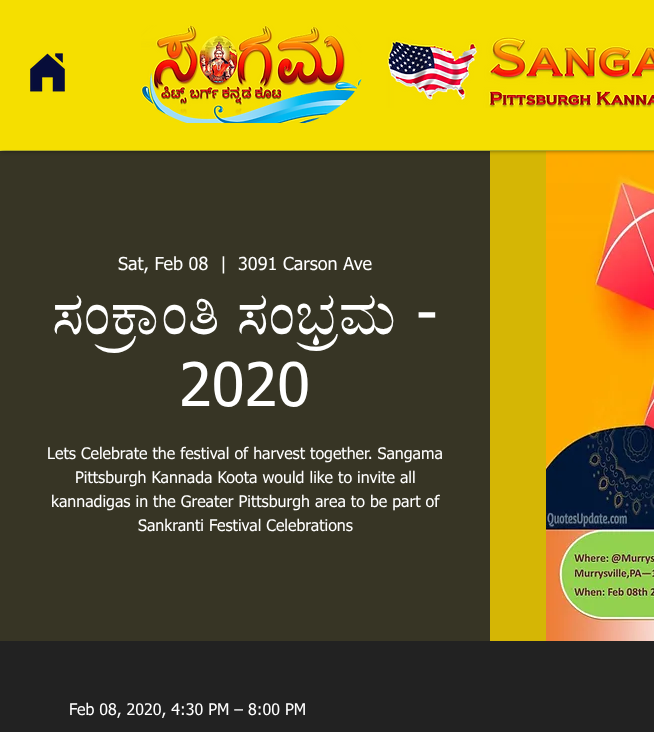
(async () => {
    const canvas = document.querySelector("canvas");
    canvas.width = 654;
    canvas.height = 732;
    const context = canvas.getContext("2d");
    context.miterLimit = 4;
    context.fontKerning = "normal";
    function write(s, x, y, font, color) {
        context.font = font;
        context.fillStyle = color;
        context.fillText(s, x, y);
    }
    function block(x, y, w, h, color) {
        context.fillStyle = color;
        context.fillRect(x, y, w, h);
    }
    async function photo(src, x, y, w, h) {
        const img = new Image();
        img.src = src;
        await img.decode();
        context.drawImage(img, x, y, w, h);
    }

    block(0, 0, 654, 732, "rgb(253, 247, 51)");
    block(0, 151, 490, 490, "rgb(55, 53, 37)");
    block(490, 151, 56, 490, "rgb(213, 182, 5)");
    await photo("media/4.png", 546, 151, 108, 490);
    context.fillStyle = "rgba(0, 0, 0, 0.7)";
    context.filter = "blur(2.5px)";
    context.beginPath();
    context.rect(0, 0, 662, 150);
    context.fill();
    context.filter = "none";
    block(0, 0, 654, 150, "rgb(245, 223, 0)");
    await photo("media/1.png", 30, 53, 35, 39);
    await photo("media/2.png", 141, 25, 221, 98);
    await photo("media/3.png", 386, 37, 268, 71);
    write("Sat, Feb 08", 118, 270, "18px tahoma", "rgb(255, 255, 255)");
    write("|", 220, 270, "18px tahoma", "rgb(255, 255, 255)");
    write("3091 Carson Ave", 238, 270, "18px tahoma", "rgb(255, 255, 255)");
    context.wordSpacing = "2px";
    write("ಸಂಕ್ರಾಂತಿ ಸಂಭ್ರಮ", 52, 334, "60px FreeSerif", "rgb(255, 255, 255)");
    context.wordSpacing = "0px";
    write("-", 416, 334, "60px tahoma", "rgb(255, 255, 255)");
    write("2020", 179, 406, "60px tahoma", "rgb(255, 255, 255)");
    write("Lets Celebrate the festival of harvest together. Sangama", 47, 459, "16px tahoma", "rgb(255, 255, 255)");
    write("Pittsburgh Kannada Koota would like to invite all", 75, 483, "16px tahoma", "rgb(255, 255, 255)");
    write("kannadigas in the Greater Pittsburgh area to be part of", 51, 507, "16px tahoma", "rgb(255, 255, 255)");
    write("Sankranti Festival Celebrations", 138, 531, "16px tahoma", "rgb(255, 255, 255)");
    block(0, 641, 654, 91, "rgb(34, 34, 34)");
    write("Feb 08, 2020, 4:30 PM – 8:00 PM", 69, 715, "16px tahoma", "rgb(255, 255, 255)");
})();
